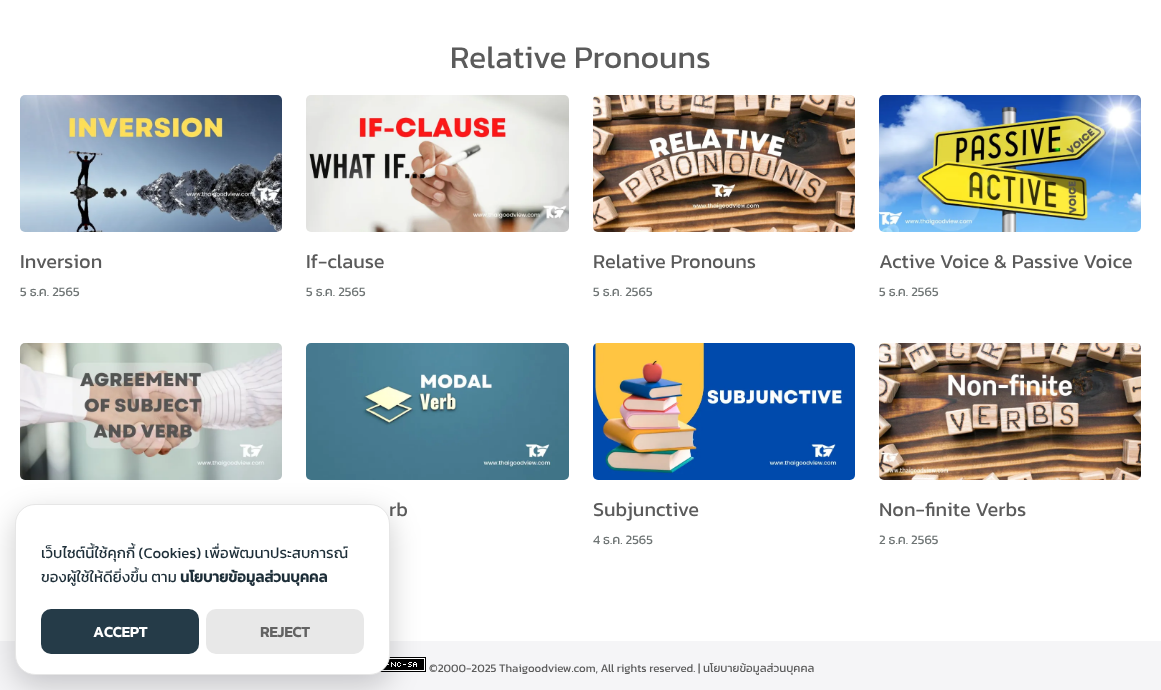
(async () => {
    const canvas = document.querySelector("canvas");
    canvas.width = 1161;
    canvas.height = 690;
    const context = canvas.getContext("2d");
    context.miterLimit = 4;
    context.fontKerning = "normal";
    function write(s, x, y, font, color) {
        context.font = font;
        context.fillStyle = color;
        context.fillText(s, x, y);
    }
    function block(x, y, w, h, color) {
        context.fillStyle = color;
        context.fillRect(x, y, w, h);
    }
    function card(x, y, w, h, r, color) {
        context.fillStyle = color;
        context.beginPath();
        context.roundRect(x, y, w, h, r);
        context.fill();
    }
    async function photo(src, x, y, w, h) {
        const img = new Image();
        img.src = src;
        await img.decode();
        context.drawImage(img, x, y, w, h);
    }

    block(0, 0, 1161, 690, "rgb(255, 255, 255)");
    write("Relative Pronouns", 450, 68, "32px Kanit", "rgb(91, 91, 91)");
    await photo("media/1.png", 20, 95, 262, 137);
    write("Inversion", 20, 268, "20px Kanit", "rgb(91, 91, 91)");
    write("5 ธ.ค. 2565", 20, 296, "13px Kanit", "rgb(110, 116, 116)");
    await photo("media/2.png", 306, 95, 263, 137);
    write("If-clause", 306, 268, "20px Kanit", "rgb(91, 91, 91)");
    write("5 ธ.ค. 2565", 306, 296, "13px Kanit", "rgb(110, 116, 116)");
    await photo("media/3.png", 593, 95, 262, 137);
    write("Relative Pronouns", 593, 268, "20px Kanit", "rgb(91, 91, 91)");
    write("5 ธ.ค. 2565", 593, 296, "13px Kanit", "rgb(110, 116, 116)");
    await photo("media/4.png", 879, 95, 262, 137);
    write("Active Voice & Passive Voice", 879, 268, "20px Kanit", "rgb(91, 91, 91)");
    write("5 ธ.ค. 2565", 879, 296, "13px Kanit", "rgb(110, 116, 116)");
    await photo("media/5.png", 20, 343, 262, 137);
    await photo("media/6.png", 306, 343, 263, 137);
    write("rb", 389, 516, "20px Kanit", "rgb(91, 91, 91)");
    await photo("media/7.png", 593, 343, 262, 137);
    write("Subjunctive", 593, 516, "20px Kanit", "rgb(91, 91, 91)");
    write("4 ธ.ค. 2565", 593, 544, "13px Kanit", "rgb(110, 116, 116)");
    await photo("media/8.png", 879, 343, 262, 137);
    write("Non-finite Verbs", 879, 516, "20px Kanit", "rgb(91, 91, 91)");
    write("2 ธ.ค. 2565", 879, 544, "13px Kanit", "rgb(110, 116, 116)");
    block(0, 641, 1161, 49, "rgb(245, 245, 247)");
    await photo("media/9.png", 380, 657, 46, 15);
    write("©2000-2025 Thaigoodview.com, All rights reserved. | นโยบายข้อมูลส่วนบุคคล", 429, 672, "11.5px Kanit", "rgb(91, 91, 91)");
    context.fillStyle = "rgba(2, 2, 3, 0.2)";
    context.filter = "blur(15px)";
    context.beginPath();
    context.roundRect(15, 514, 375, 171, 20);
    context.fill();
    context.filter = "none";
    context.fillStyle = "rgb(255, 255, 255)";
    context.beginPath();
    context.roundRect(15.5, 504.5, 374, 170, 19.5);
    context.fill();
    context.strokeStyle = "rgb(230, 230, 230)";
    context.stroke();
    write("เว็บไซต์นี้ใช้คุกกี้ (Cookies) เพื่อพัฒนาประสบการณ์", 41, 558, "15px Kanit", "rgb(29, 46, 56)");
    write("ของผู้ใช้ให้ดียิ่งขึ้น ตาม", 41, 582, "15px Kanit", "rgb(29, 46, 56)");
    write("นโยบายข้อมูลส่วนบุคคล", 180, 582, "bold 15px Kanit", "rgb(29, 46, 56)");
    card(41, 609, 158, 45, 10, "rgb(37, 59, 72)");
    write("ACCEPT", 93, 637, "bold 15px Kanit", "rgb(255, 255, 255)");
    card(206, 609, 158, 45, 10, "rgb(232, 232, 232)");
    write("REJECT", 260, 637, "bold 15px Kanit", "rgb(99, 99, 99)");
})();
